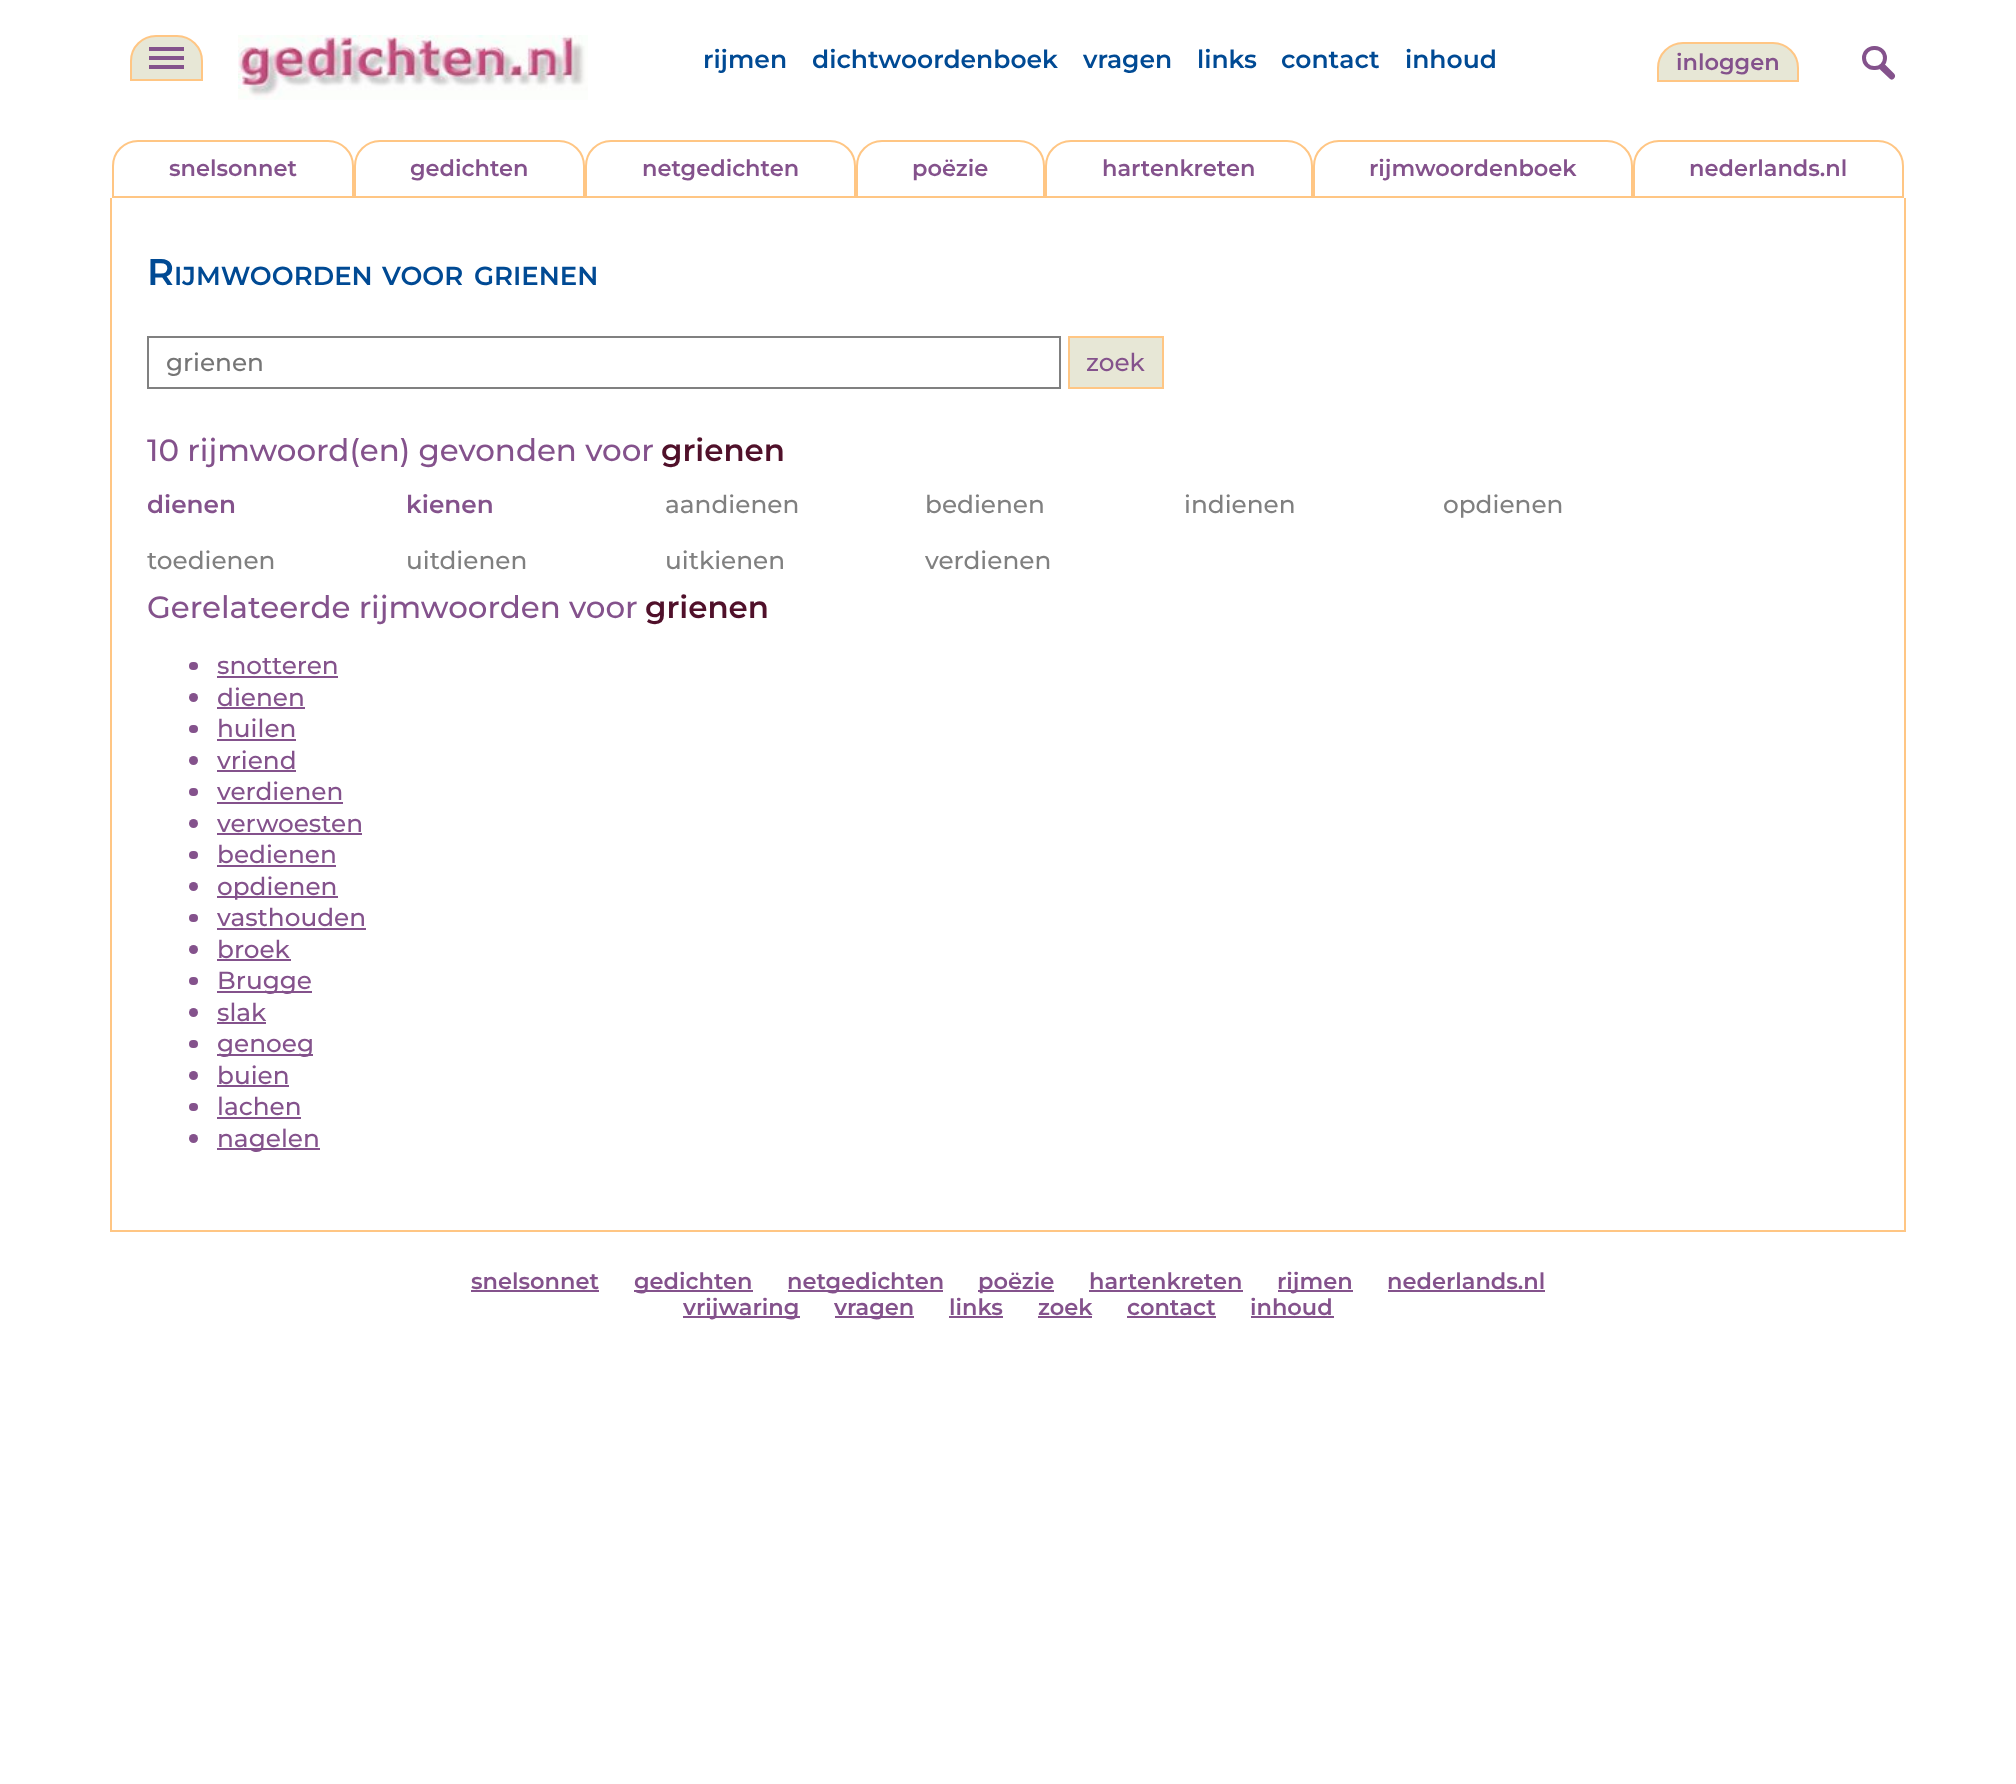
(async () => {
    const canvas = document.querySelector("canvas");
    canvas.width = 2016;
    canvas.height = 1784;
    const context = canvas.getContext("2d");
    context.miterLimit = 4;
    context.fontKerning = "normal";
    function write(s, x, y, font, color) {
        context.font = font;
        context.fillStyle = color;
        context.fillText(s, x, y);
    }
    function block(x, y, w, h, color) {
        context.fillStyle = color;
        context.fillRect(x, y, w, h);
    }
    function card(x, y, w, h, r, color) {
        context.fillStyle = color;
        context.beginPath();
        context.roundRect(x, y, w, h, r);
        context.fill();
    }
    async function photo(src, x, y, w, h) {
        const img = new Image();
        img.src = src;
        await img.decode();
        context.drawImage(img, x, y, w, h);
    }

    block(0, 0, 2016, 1784, "rgb(255, 255, 255)");
    context.fillStyle = "rgb(231, 231, 214)";
    context.beginPath();
    context.roundRect(131, 36, 71, 44, [25, 25, 0, 0]);
    context.fill();
    context.strokeStyle = "rgb(255, 198, 132)";
    context.lineWidth = 2;
    context.stroke();
    block(149, 47, 35, 4, "rgb(132, 82, 140)");
    block(149, 56, 35, 4, "rgb(132, 82, 140)");
    block(149, 65, 35, 4, "rgb(132, 82, 140)");
    await photo("media/1.png", 238, 35, 350, 65);
    write("rijmen", 703, 68, "100 25px Montserrat", "rgb(0, 74, 148)");
    write("dichtwoordenboek", 812, 68, "100 25px Montserrat", "rgb(0, 74, 148)");
    write("vragen", 1083, 68, "100 25px Montserrat", "rgb(0, 74, 148)");
    write("links", 1197, 68, "100 25px Montserrat", "rgb(0, 74, 148)");
    write("contact", 1281, 68, "100 25px Montserrat", "rgb(0, 74, 148)");
    write("inhoud", 1405, 68, "100 25px Montserrat", "rgb(0, 74, 148)");
    context.fillStyle = "rgb(231, 231, 214)";
    context.beginPath();
    context.roundRect(1658, 43, 140, 38, [25, 25, 0, 0]);
    context.fill();
    context.stroke();
    write("inloggen", 1676, 70, "100 22.5px Montserrat", "rgb(132, 82, 140)");
    context.beginPath();
    context.roundRect(1864, 48, 21, 20, 10);
    context.strokeStyle = "rgb(132, 82, 140)";
    context.lineWidth = 4;
    context.stroke();
    context.beginPath();
    context.moveTo(1885.5, 65);
    context.lineTo(1894, 73.5);
    context.bezierCurveTo(1895.5, 75, 1895.5, 77, 1894, 78.5);
    context.bezierCurveTo(1893, 80, 1890.5, 80, 1889.5, 78.5);
    context.lineTo(1880.5, 70);
    context.bezierCurveTo(1879, 68.5, 1879, 66.5, 1880.5, 65);
    context.bezierCurveTo(1882, 63.5, 1884, 63.5, 1885.5, 65);
    context.closePath();
    context.fill();
    context.beginPath();
    context.roundRect(113, 141, 240, 56, [25, 25, 0, 0]);
    context.strokeStyle = "rgb(255, 198, 132)";
    context.lineWidth = 2;
    context.stroke();
    write("snelsonnet", 169, 176, "100 22.5px Montserrat", "rgb(132, 82, 140)");
    context.beginPath();
    context.roundRect(355, 141, 229, 56, [25, 25, 0, 0]);
    context.stroke();
    write("gedichten", 410, 176, "100 22.5px Montserrat", "rgb(132, 82, 140)");
    context.beginPath();
    context.roundRect(586, 141, 269, 56, [25, 25, 0, 0]);
    context.stroke();
    write("netgedichten", 642, 176, "100 22.5px Montserrat", "rgb(132, 82, 140)");
    context.beginPath();
    context.roundRect(857, 141, 187, 56, [25, 25, 0, 0]);
    context.stroke();
    write("poëzie", 912, 176, "100 22.5px Montserrat", "rgb(132, 82, 140)");
    context.beginPath();
    context.roundRect(1046, 141, 266, 56, [25, 25, 0, 0]);
    context.stroke();
    write("hartenkreten", 1102, 176, "100 22.5px Montserrat", "rgb(132, 82, 140)");
    context.beginPath();
    context.roundRect(1314, 141, 318, 56, [25, 25, 0, 0]);
    context.stroke();
    write("rijmwoordenboek", 1369, 176, "100 22.5px Montserrat", "rgb(132, 82, 140)");
    context.beginPath();
    context.roundRect(1634, 141, 269, 56, [25, 25, 0, 0]);
    context.stroke();
    write("nederlands.nl", 1689, 176, "100 22.5px Montserrat", "rgb(132, 82, 140)");
    block(1904, 198, 2, 1034, "rgb(255, 198, 132)");
    block(110, 1230, 1796, 2, "rgb(255, 198, 132)");
    block(110, 198, 2, 1034, "rgb(255, 198, 132)");
    write("R", 147, 285, "100 37px Montserrat", "rgb(0, 74, 148)");
    write("IJMWOORDEN", 174, 285, "100 26px Montserrat", "rgb(0, 74, 148)");
    write("VOOR", 382, 285, "100 26px Montserrat", "rgb(0, 74, 148)");
    write("GRIENEN", 474, 285, "100 26px Montserrat", "rgb(0, 74, 148)");
    context.strokeStyle = "rgb(128, 128, 128)";
    context.strokeRect(148, 337, 912, 51);
    write("grienen", 166, 371, "100 24.75px 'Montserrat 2'", "rgb(117, 117, 117)");
    context.fillStyle = "rgb(231, 231, 214)";
    context.beginPath();
    context.rect(1069, 337, 94, 51);
    context.fill();
    context.strokeStyle = "rgb(255, 198, 132)";
    context.stroke();
    write("zoek", 1086, 371, "100 24.75px 'Montserrat 2'", "rgb(132, 82, 140)");
    write("10 rijmwoord(en) gevonden voor", 147, 461, "100 30.9px 'Montserrat 2'", "rgb(132, 82, 140)");
    write("grienen", 661, 461, "100 30.9px Montserrat", "rgb(80, 16, 42)");
    write("dienen", 147, 513, "100 24.75px Montserrat", "rgb(132, 82, 140)");
    write("kienen", 406, 513, "100 24.75px Montserrat", "rgb(132, 82, 140)");
    write("aandienen", 665, 513, "100 24.75px 'Montserrat 2'", "rgb(128, 128, 128)");
    write("bedienen", 925, 513, "100 24.75px 'Montserrat 2'", "rgb(128, 128, 128)");
    write("indienen", 1184, 513, "100 24.75px 'Montserrat 2'", "rgb(128, 128, 128)");
    write("opdienen", 1443, 513, "100 24.75px 'Montserrat 2'", "rgb(128, 128, 128)");
    write("toedienen", 147, 569, "100 24.75px 'Montserrat 2'", "rgb(128, 128, 128)");
    write("uitdienen", 406, 569, "100 24.75px 'Montserrat 2'", "rgb(128, 128, 128)");
    write("uitkienen", 665, 569, "100 24.75px 'Montserrat 2'", "rgb(128, 128, 128)");
    write("verdienen", 925, 569, "100 24.75px 'Montserrat 2'", "rgb(128, 128, 128)");
    write("Gerelateerde rijmwoorden voor", 147, 618, "100 30.9px 'Montserrat 2'", "rgb(132, 82, 140)");
    write("grienen", 645, 618, "100 30.9px Montserrat", "rgb(80, 16, 42)");
    card(189, 662, 9, 8, 4, "rgb(132, 82, 140)");
    write("snotteren", 217, 674, "100 24.75px 'Montserrat 2'", "rgb(132, 82, 140)");
    block(217, 676, 121, 2, "rgb(132, 82, 140)");
    context.beginPath();
    context.arc(193.5, 697.5, 4.5, 0, Math.PI * 2);
    context.fill();
    write("dienen", 217, 706, "100 24.75px 'Montserrat 2'", "rgb(132, 82, 140)");
    block(217, 707, 88, 2, "rgb(132, 82, 140)");
    card(189, 725, 9, 8, 4, "rgb(132, 82, 140)");
    write("huilen", 217, 737, "100 24.75px 'Montserrat 2'", "rgb(132, 82, 140)");
    block(217, 739, 79, 2, "rgb(132, 82, 140)");
    context.beginPath();
    context.arc(193.5, 760.5, 4.5, 0, Math.PI * 2);
    context.fill();
    write("vriend", 217, 769, "100 24.75px 'Montserrat 2'", "rgb(132, 82, 140)");
    block(217, 770, 79, 2, "rgb(132, 82, 140)");
    card(189, 788, 9, 8, 4, "rgb(132, 82, 140)");
    write("verdienen", 217, 800, "100 24.75px 'Montserrat 2'", "rgb(132, 82, 140)");
    block(217, 802, 126, 2, "rgb(132, 82, 140)");
    context.beginPath();
    context.arc(193.5, 823.5, 4.5, 0, Math.PI * 2);
    context.fill();
    write("verwoesten", 217, 832, "100 24.75px 'Montserrat 2'", "rgb(132, 82, 140)");
    block(217, 833, 145, 2, "rgb(132, 82, 140)");
    card(189, 851, 9, 8, 4, "rgb(132, 82, 140)");
    write("bedienen", 217, 863, "100 24.75px 'Montserrat 2'", "rgb(132, 82, 140)");
    block(217, 865, 119, 2, "rgb(132, 82, 140)");
    context.beginPath();
    context.arc(193.5, 886.5, 4.5, 0, Math.PI * 2);
    context.fill();
    block(217, 896, 121, 2, "rgb(132, 82, 140)");
    write("opdienen", 217, 895, "100 24.75px 'Montserrat 2'", "rgb(132, 82, 140)");
    card(189, 914, 9, 8, 4, "rgb(132, 82, 140)");
    write("vasthouden", 217, 926, "100 24.75px 'Montserrat 2'", "rgb(132, 82, 140)");
    block(217, 928, 149, 2, "rgb(132, 82, 140)");
    context.beginPath();
    context.arc(193.5, 949.5, 4.5, 0, Math.PI * 2);
    context.fill();
    write("broek", 217, 958, "100 24.75px 'Montserrat 2'", "rgb(132, 82, 140)");
    block(217, 959, 74, 2, "rgb(132, 82, 140)");
    card(189, 977, 9, 8, 4, "rgb(132, 82, 140)");
    block(217, 991, 95, 2, "rgb(132, 82, 140)");
    write("Brugge", 217, 989, "100 24.75px 'Montserrat 2'", "rgb(132, 82, 140)");
    context.beginPath();
    context.arc(193.5, 1012.5, 4.5, 0, Math.PI * 2);
    context.fill();
    write("slak", 217, 1021, "100 24.75px 'Montserrat 2'", "rgb(132, 82, 140)");
    block(217, 1022, 49, 2, "rgb(132, 82, 140)");
    card(189, 1040, 9, 8, 4, "rgb(132, 82, 140)");
    block(217, 1054, 96, 2, "rgb(132, 82, 140)");
    write("genoeg", 217, 1052, "100 24.75px 'Montserrat 2'", "rgb(132, 82, 140)");
    context.beginPath();
    context.arc(193.5, 1075.5, 4.5, 0, Math.PI * 2);
    context.fill();
    write("buien", 217, 1084, "100 24.75px 'Montserrat 2'", "rgb(132, 82, 140)");
    block(217, 1085, 72, 2, "rgb(132, 82, 140)");
    card(189, 1103, 9, 8, 4, "rgb(132, 82, 140)");
    write("lachen", 217, 1115, "100 24.75px 'Montserrat 2'", "rgb(132, 82, 140)");
    block(217, 1117, 84, 2, "rgb(132, 82, 140)");
    context.beginPath();
    context.arc(193.5, 1138.5, 4.5, 0, Math.PI * 2);
    context.fill();
    block(217, 1148, 103, 2, "rgb(132, 82, 140)");
    write("nagelen", 217, 1147, "100 24.75px 'Montserrat 2'", "rgb(132, 82, 140)");
    write("snelsonnet", 471, 1289, "100 22.5px Montserrat", "rgb(132, 82, 140)");
    block(471, 1290, 128, 2, "rgb(132, 82, 140)");
    block(634, 1290, 119, 2, "rgb(132, 82, 140)");
    write("gedichten", 634, 1289, "100 22.5px Montserrat", "rgb(132, 82, 140)");
    block(788, 1290, 155, 2, "rgb(132, 82, 140)");
    write("netgedichten", 787, 1289, "100 22.5px Montserrat", "rgb(132, 82, 140)");
    block(978, 1290, 76, 2, "rgb(132, 82, 140)");
    write("poëzie", 978, 1289, "100 22.5px Montserrat", "rgb(132, 82, 140)");
    write("hartenkreten", 1089, 1289, "100 22.5px Montserrat", "rgb(132, 82, 140)");
    block(1089, 1290, 154, 2, "rgb(132, 82, 140)");
    block(1278, 1290, 75, 2, "rgb(132, 82, 140)");
    write("rijmen", 1277, 1289, "100 22.5px Montserrat", "rgb(132, 82, 140)");
    write("nederlands.nl", 1387, 1289, "100 22.5px Montserrat", "rgb(132, 82, 140)");
    block(1388, 1290, 157, 2, "rgb(132, 82, 140)");
    block(683, 1316, 117, 2, "rgb(132, 82, 140)");
    write("vrijwaring", 683, 1315, "100 22.5px Montserrat", "rgb(132, 82, 140)");
    block(835, 1316, 79, 2, "rgb(132, 82, 140)");
    write("vragen", 834, 1315, "100 22.5px Montserrat", "rgb(132, 82, 140)");
    write("links", 949, 1315, "100 22.5px Montserrat", "rgb(132, 82, 140)");
    block(949, 1316, 54, 2, "rgb(132, 82, 140)");
    write("zoek", 1038, 1315, "100 22.5px Montserrat", "rgb(132, 82, 140)");
    block(1038, 1316, 54, 2, "rgb(132, 82, 140)");
    write("contact", 1127, 1315, "100 22.5px Montserrat", "rgb(132, 82, 140)");
    block(1127, 1316, 89, 2, "rgb(132, 82, 140)");
    write("inhoud", 1250, 1315, "100 22.5px Montserrat", "rgb(132, 82, 140)");
    block(1251, 1316, 83, 2, "rgb(132, 82, 140)");
})();
